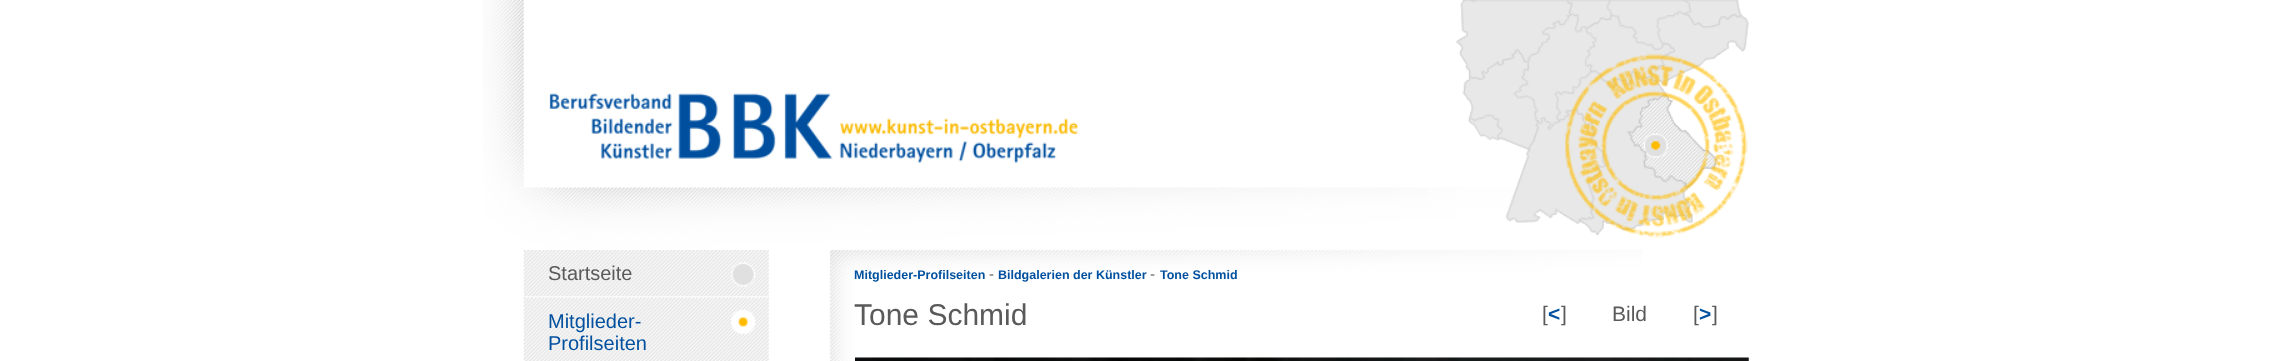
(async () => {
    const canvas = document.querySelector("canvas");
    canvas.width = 2271;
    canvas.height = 361;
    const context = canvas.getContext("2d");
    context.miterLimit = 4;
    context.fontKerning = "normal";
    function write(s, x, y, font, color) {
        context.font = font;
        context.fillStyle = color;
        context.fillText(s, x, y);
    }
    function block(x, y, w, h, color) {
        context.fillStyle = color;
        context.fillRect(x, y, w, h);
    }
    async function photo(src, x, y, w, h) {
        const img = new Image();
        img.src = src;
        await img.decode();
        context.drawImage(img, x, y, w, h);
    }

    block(0, 0, 2271, 361, "rgb(255, 255, 255)");
    await photo("media/1.png", 483, 0, 1160, 361);
    await photo("media/2.png", 549, 93, 529, 70);
    await photo("media/3.png", 1456, 0, 293, 238);
    await photo("media/4.png", 523, 250, 246, 48);
    await photo("media/5.png", 524, 296, 245, 2);
    write("Startseite", 548, 280, "20px Liberation Sans", "rgb(90, 90, 90)");
    await photo("media/6.png", 523, 297, 246, 64);
    write("Mitglieder-", 548, 328, "20px Liberation Sans", "rgb(0, 80, 159)");
    write("Profilseiten", 548, 350, "20px Liberation Sans", "rgb(0, 80, 159)");
    write("Mitglieder-Profilseiten", 854, 279, "bold 12.5px Liberation Sans", "rgb(0, 80, 159)");
    write("-", 989, 279, "15px Liberation Sans", "rgb(90, 90, 90)");
    write("Bildgalerien der Künstler", 998, 279, "bold 12.5px Liberation Sans", "rgb(0, 80, 159)");
    write("-", 1150, 279, "15px Liberation Sans", "rgb(90, 90, 90)");
    write("Tone Schmid", 1160, 279, "bold 12.5px Liberation Sans", "rgb(0, 80, 159)");
    write("[", 1542, 321, "21px Liberation Sans", "rgb(90, 90, 90)");
    write("<", 1548, 321, "bold 21px Liberation Sans", "rgb(0, 80, 159)");
    write("]", 1561, 321, "21px Liberation Sans", "rgb(90, 90, 90)");
    write("Bild", 1612, 321, "21px Liberation Sans", "rgb(90, 90, 90)");
    write("[", 1693, 321, "21px Liberation Sans", "rgb(90, 90, 90)");
    write(">", 1699, 321, "bold 21px Liberation Sans", "rgb(0, 80, 159)");
    write("]", 1712, 321, "21px Liberation Sans", "rgb(90, 90, 90)");
    write("Tone Schmid", 854, 325, "30px Liberation Sans", "rgb(90, 90, 90)");
    await photo("media/7.png", 855, 357, 894, 4);
})();
